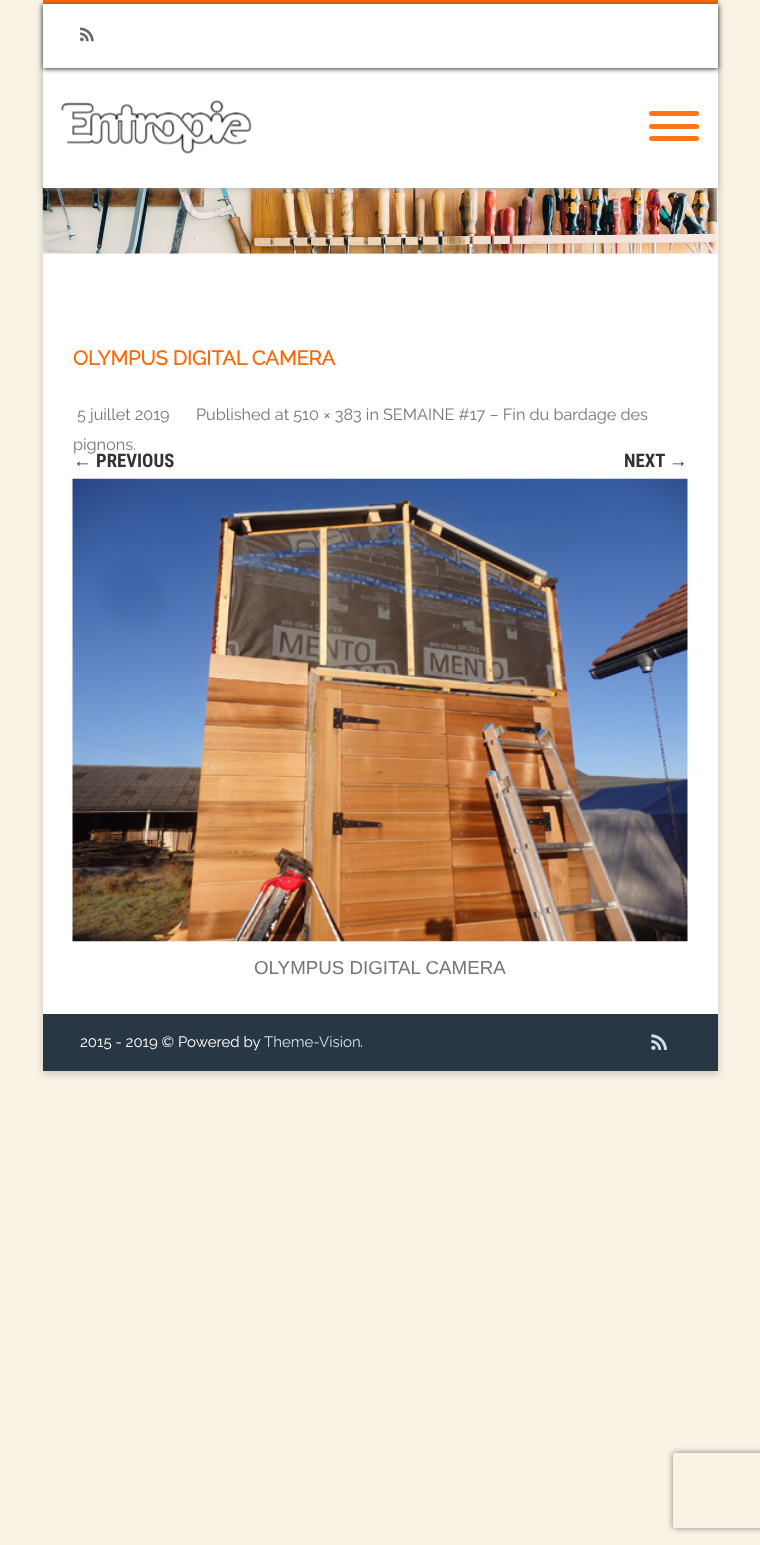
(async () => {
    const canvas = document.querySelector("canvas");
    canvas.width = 760;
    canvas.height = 1545;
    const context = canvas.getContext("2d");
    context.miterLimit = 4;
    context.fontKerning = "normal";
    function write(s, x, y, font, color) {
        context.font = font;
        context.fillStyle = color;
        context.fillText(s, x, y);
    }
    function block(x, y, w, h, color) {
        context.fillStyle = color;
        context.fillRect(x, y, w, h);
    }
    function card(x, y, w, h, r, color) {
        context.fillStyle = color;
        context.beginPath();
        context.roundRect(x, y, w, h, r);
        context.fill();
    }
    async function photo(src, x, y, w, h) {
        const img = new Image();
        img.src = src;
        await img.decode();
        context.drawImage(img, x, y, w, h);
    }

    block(0, 0, 760, 1545, "rgb(249, 243, 229)");
    context.fillStyle = "rgba(100, 100, 100, 0.3)";
    context.filter = "blur(4px)";
    context.beginPath();
    context.rect(43, 3, 675, 1071);
    context.fill();
    context.filter = "none";
    block(43, 188, 675, 826, "rgb(255, 255, 255)");
    await photo("media/3.png", 42, 186, 676, 68);
    block(43, 4, 675, 184, "rgb(255, 255, 255)");
    block(43, 0, 675, 4, "rgb(255, 102, 0)");
    context.save();
    context.beginPath();
    context.moveTo(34, 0);
    context.lineTo(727, 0);
    context.lineTo(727, 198);
    context.lineTo(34, 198);
    context.closePath();
    context.moveTo(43, 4);
    context.lineTo(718, 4);
    context.lineTo(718, 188);
    context.lineTo(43, 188);
    context.closePath();
    context.clip("evenodd");
    context.fillStyle = "rgba(167, 169, 164, 0.75)";
    context.filter = "blur(2.5px)";
    context.beginPath();
    context.rect(43, 5, 675, 184);
    context.fill();
    context.filter = "none";
    context.restore();
    context.save();
    context.beginPath();
    context.moveTo(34, 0);
    context.lineTo(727, 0);
    context.lineTo(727, 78);
    context.lineTo(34, 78);
    context.closePath();
    context.moveTo(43, 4);
    context.lineTo(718, 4);
    context.lineTo(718, 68);
    context.lineTo(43, 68);
    context.closePath();
    context.clip("evenodd");
    context.fillStyle = "rgb(59, 51, 51)";
    context.filter = "blur(2.5px)";
    context.beginPath();
    context.rect(43, 5, 675, 64);
    context.fill();
    context.filter = "none";
    context.restore();
    await photo("media/1.png", 80, 27, 14, 15);
    await photo("media/2.png", 61, 100, 191, 54);
    card(649, 111, 50, 5, 2.5, "rgb(255, 117, 26)");
    card(649, 124, 50, 5, 2.5, "rgb(255, 117, 26)");
    card(649, 136, 50, 5, 2.5, "rgb(255, 117, 26)");
    write("OLYMPUS DIGITAL CAMERA", 73, 365, "bold 20px Raleway", "rgb(255, 102, 0)");
    write("5 juillet 2019", 77, 420, "16.25px Raleway", "rgb(117, 117, 117)");
    write("Published at 510 × 383 in SEMAINE #17 – Fin du bardage des", 196, 420, "16.25px Raleway", "rgb(117, 117, 117)");
    write("pignons.", 73, 450, "16.25px Raleway", "rgb(117, 117, 117)");
    write("←", 73, 467, "bold 18.75px Liberation Sans", "rgb(51, 51, 51)");
    write("PREVIOUS", 96, 467, "bold 18.75px Roboto Condensed", "rgb(51, 51, 51)");
    write("NEXT", 624, 467, "bold 18.75px Roboto Condensed", "rgb(51, 51, 51)");
    write("→", 669, 467, "bold 18.75px Liberation Sans", "rgb(51, 51, 51)");
    await photo("media/4.png", 72, 478, 616, 464);
    write("OLYMPUS DIGITAL CAMERA", 254, 974, "18.75px Liberation Sans", "rgb(117, 117, 117)");
    block(43, 1014, 675, 57, "rgb(41, 55, 68)");
    write("2015 - 2019 © Powered by", 80, 1047, "15px Raleway", "rgb(255, 255, 255)");
    write("Theme-Vision", 264, 1047, "15px Raleway", "rgb(205, 222, 238)");
    write(".", 360, 1047, "15px Raleway", "rgb(255, 255, 255)");
    await photo("media/5.png", 651, 1034, 16, 16);
    context.save();
    context.beginPath();
    context.moveTo(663, 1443);
    context.lineTo(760, 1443);
    context.lineTo(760, 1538);
    context.lineTo(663, 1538);
    context.closePath();
    context.moveTo(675.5, 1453);
    context.lineTo(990.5, 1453);
    context.bezierCurveTo(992, 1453, 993, 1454, 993, 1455.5);
    context.lineTo(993, 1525.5);
    context.bezierCurveTo(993, 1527, 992, 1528, 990.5, 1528);
    context.lineTo(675.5, 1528);
    context.bezierCurveTo(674, 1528, 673, 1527, 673, 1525.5);
    context.lineTo(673, 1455.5);
    context.bezierCurveTo(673, 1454, 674, 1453, 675.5, 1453);
    context.closePath();
    context.clip("evenodd");
    context.fillStyle = "rgb(128, 128, 128)";
    context.filter = "blur(3px)";
    context.beginPath();
    context.roundRect(673, 1453, 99, 75, 2.5);
    context.fill();
    context.filter = "none";
    context.restore();
})();
